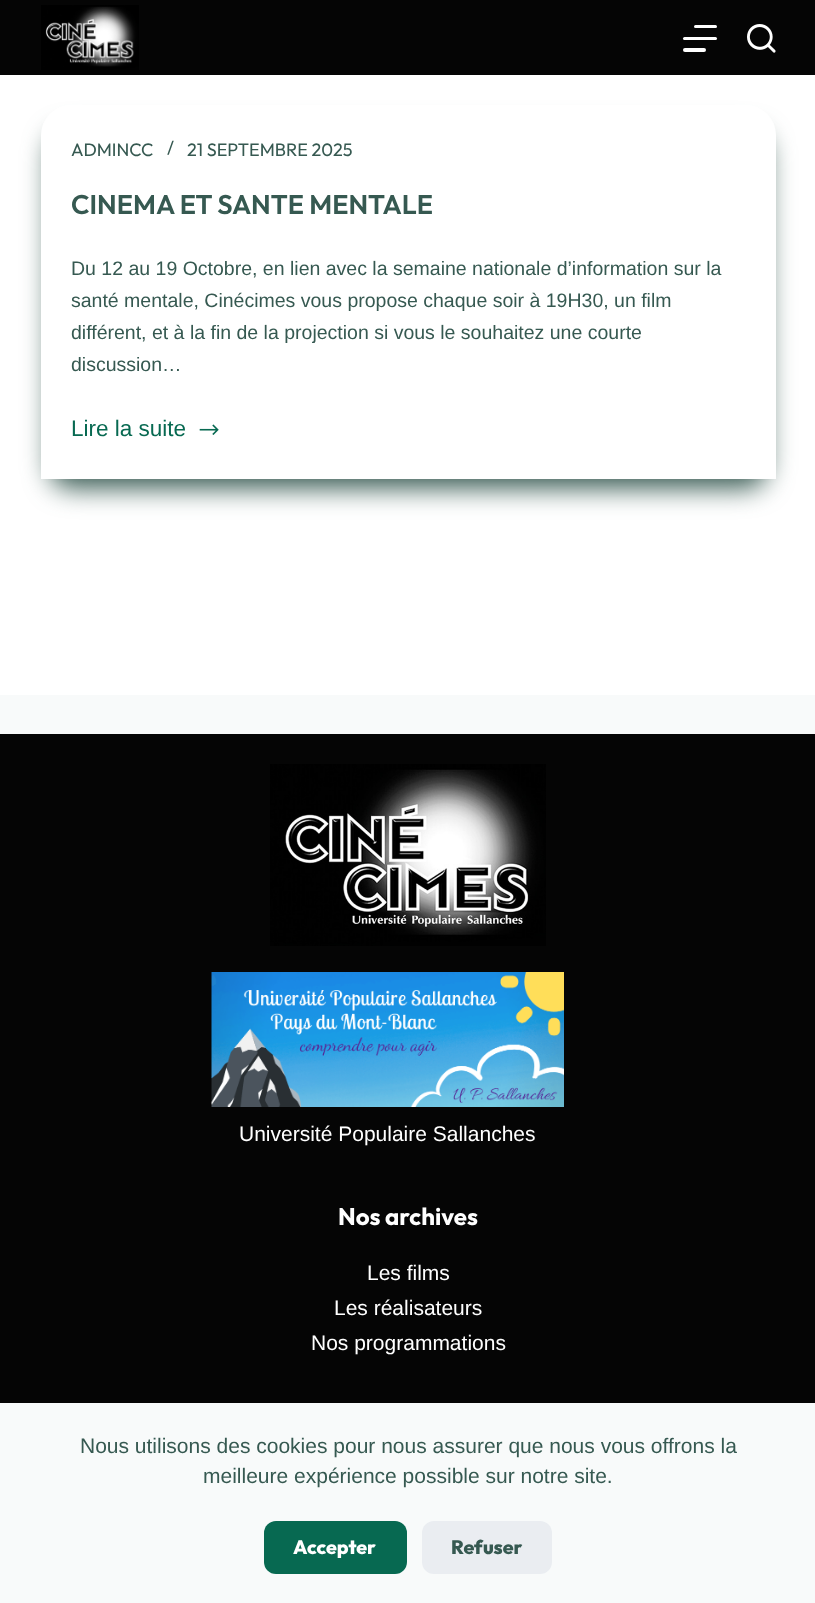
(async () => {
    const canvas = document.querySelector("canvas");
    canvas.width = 815;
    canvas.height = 1603;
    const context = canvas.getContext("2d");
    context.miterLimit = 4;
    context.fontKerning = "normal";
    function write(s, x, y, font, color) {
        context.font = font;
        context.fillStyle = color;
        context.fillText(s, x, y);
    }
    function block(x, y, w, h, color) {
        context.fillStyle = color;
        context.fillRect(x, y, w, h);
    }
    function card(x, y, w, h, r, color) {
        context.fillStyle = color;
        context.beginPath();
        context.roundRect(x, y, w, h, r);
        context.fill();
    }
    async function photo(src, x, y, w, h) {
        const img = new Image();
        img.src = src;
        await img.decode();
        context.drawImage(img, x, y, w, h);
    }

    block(0, 0, 815, 1603, "rgb(255, 255, 255)");
    block(0, 0, 815, 75, "rgb(5, 5, 5)");
    await photo("media/1.png", 41, 5, 98, 65);
    card(694, 25, 23, 3, 1.5, "rgb(255, 255, 255)");
    card(683, 37, 34, 3, 1.5, "rgb(255, 255, 255)");
    card(683, 48, 23, 4, 2, "rgb(255, 255, 255)");
    await photo("media/2.png", 747, 24, 29, 29);
    context.fillStyle = "rgb(54, 89, 81)";
    context.filter = "blur(13.5px)";
    context.beginPath();
    context.roundRect(50, 132, 717, 356, 21);
    context.fill();
    context.filter = "none";
    context.fillStyle = "rgb(255, 255, 255)";
    context.beginPath();
    context.roundRect(41, 105, 735, 374, [30, 30, 0, 0]);
    context.fill();
    write("ADMINCC", 71, 156, "18px Outfit", "rgb(54, 89, 81)");
    write("/", 167, 154, "18px Outfit", "rgb(54, 89, 81)");
    write("21 SEPTEMBRE 2025", 187, 156, "18px Outfit", "rgb(54, 89, 81)");
    write("CINEMA ET SANTE MENTALE", 71, 214, "600 27px Outfit", "rgb(54, 89, 81)");
    write("Du 12 au 19 Octobre, en lien avec la semaine nationale d’information sur la", 71, 275, "19.5px Liberation Sans", "rgb(54, 89, 81)");
    write("santé mentale, Cinécimes vous propose chaque soir à 19H30, un film", 71, 307, "19.5px Liberation Sans", "rgb(54, 89, 81)");
    write("différent, et à la fin de la projection si vous le souhaitez une courte", 71, 339, "19.5px Liberation Sans", "rgb(54, 89, 81)");
    write("discussion…", 71, 371, "19.5px Liberation Sans", "rgb(54, 89, 81)");
    write("Lire la suite", 71, 436, "22.5px Liberation Sans", "rgb(7, 105, 81)");
    await photo("media/3.png", 199, 424, 20, 11);
    block(0, 695, 815, 39, "rgb(248, 250, 250)");
    block(0, 734, 815, 669, "rgb(5, 5, 5)");
    await photo("media/4.png", 270, 764, 276, 182);
    await photo("media/5.png", 211, 972, 353, 135);
    write("Université Populaire Sallanches", 239, 1141, "21px Liberation Sans", "rgb(255, 255, 255)");
    write("Nos archives", 338, 1225, "bold 24px Outfit", "rgb(255, 255, 255)");
    write("Les films", 367, 1280, "21px Liberation Sans", "rgb(255, 255, 255)");
    write("Les réalisateurs", 334, 1315, "21px Liberation Sans", "rgb(255, 255, 255)");
    write("Nos programmations", 311, 1350, "21px Liberation Sans", "rgb(255, 255, 255)");
    block(0, 1403, 815, 200, "rgb(248, 250, 250)");
    write("Nous utilisons des cookies pour nous assurer que nous vous offrons la", 80, 1453, "21px Liberation Sans", "rgb(54, 89, 81)");
    write("meilleure expérience possible sur notre site.", 203, 1483, "21px Liberation Sans", "rgb(54, 89, 81)");
    card(264, 1521, 143, 53, 12, "rgb(7, 105, 81)");
    write("Accepter", 293, 1554, "800 19.5px Outfit", "rgb(255, 255, 255)");
    card(422, 1521, 130, 53, 12, "rgb(234, 237, 241)");
    write("Refuser", 451, 1554, "800 19.5px Outfit", "rgb(54, 89, 81)");
})();
